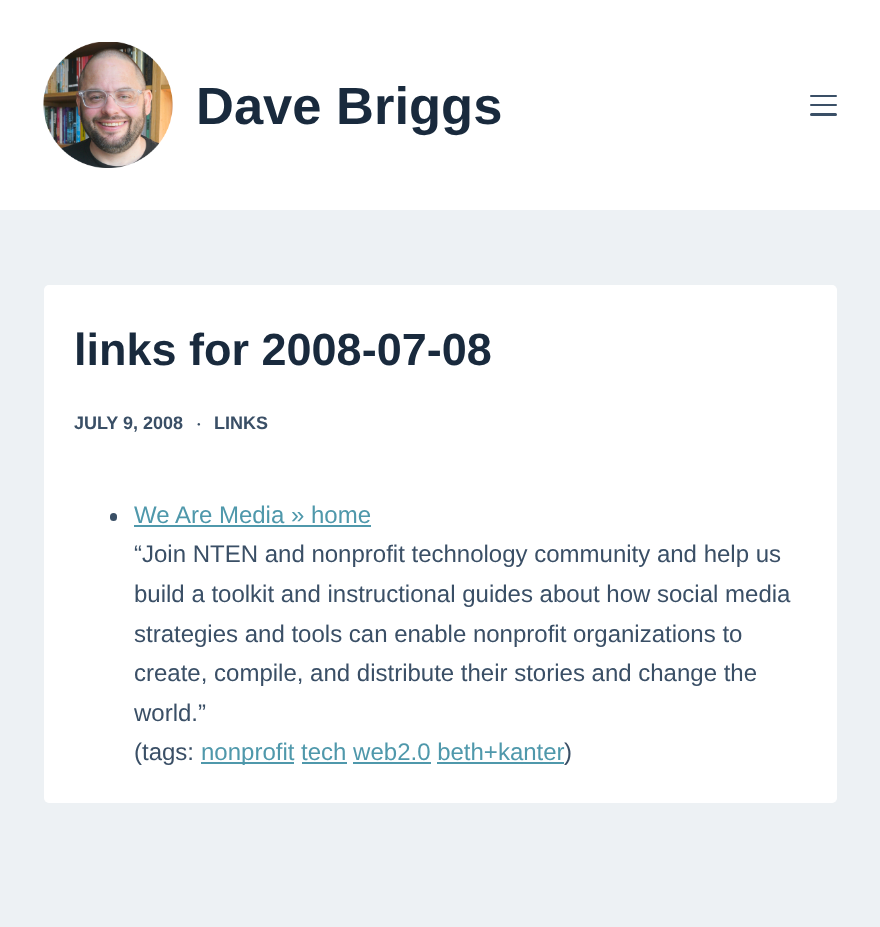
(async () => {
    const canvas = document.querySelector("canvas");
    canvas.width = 880;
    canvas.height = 927;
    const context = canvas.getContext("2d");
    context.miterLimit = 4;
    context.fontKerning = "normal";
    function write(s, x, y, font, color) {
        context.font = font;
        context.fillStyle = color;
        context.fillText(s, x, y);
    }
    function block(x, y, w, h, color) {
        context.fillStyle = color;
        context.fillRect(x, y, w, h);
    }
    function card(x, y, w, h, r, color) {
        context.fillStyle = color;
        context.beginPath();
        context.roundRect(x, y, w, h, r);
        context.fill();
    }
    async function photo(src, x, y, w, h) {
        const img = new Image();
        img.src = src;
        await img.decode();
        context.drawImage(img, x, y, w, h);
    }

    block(0, 0, 880, 927, "rgb(237, 241, 244)");
    block(0, 0, 880, 210, "rgb(255, 255, 255)");
    await photo("media/1.png", 43, 42, 130, 126);
    write("Dave Briggs", 196, 124, "bold 52.5px Liberation Sans", "rgb(25, 42, 61)");
    card(810, 95, 27, 2, 1, "rgb(58, 79, 102)");
    card(810, 104, 27, 2, 1, "rgb(58, 79, 102)");
    card(810, 113, 27, 3, 1.5, "rgb(58, 79, 102)");
    card(44, 285, 793, 518, 5, "rgb(255, 255, 255)");
    write("links for 2008-07-08", 74, 365, "bold 45px Liberation Sans", "rgb(25, 42, 61)");
    write("JULY 9, 2008", 74, 429, "bold 18px Liberation Sans", "rgb(58, 79, 102)");
    write("●", 197, 426, "bold 6px Liberation Sans", "rgb(58, 79, 102)");
    write("LINKS", 214, 429, "bold 18px Liberation Sans", "rgb(58, 79, 102)");
    card(110, 513, 7, 8, 3.5, "rgb(58, 79, 102)");
    write("We Are Media » home", 134, 523, "24px Liberation Sans", "rgb(79, 152, 171)");
    block(134, 525, 237, 2, "rgb(79, 152, 171)");
    write("“Join NTEN and nonprofit technology community and help us", 134, 562, "24px Liberation Sans", "rgb(58, 79, 102)");
    write("build a toolkit and instructional guides about how social media", 134, 602, "24px Liberation Sans", "rgb(58, 79, 102)");
    write("strategies and tools can enable nonprofit organizations to", 134, 642, "24px Liberation Sans", "rgb(58, 79, 102)");
    write("create, compile, and distribute their stories and change the", 134, 681, "24px Liberation Sans", "rgb(58, 79, 102)");
    write("world.”", 134, 721, "24px Liberation Sans", "rgb(58, 79, 102)");
    write("(tags:", 134, 760, "24px Liberation Sans", "rgb(58, 79, 102)");
    block(201, 762, 93, 2, "rgb(79, 152, 171)");
    write("nonprofit tech web2.0 beth+kanter", 201, 760, "24px Liberation Sans", "rgb(79, 152, 171)");
    write(")", 564, 760, "24px Liberation Sans", "rgb(58, 79, 102)");
    block(302, 762, 45, 2, "rgb(79, 152, 171)");
    block(353, 762, 78, 2, "rgb(79, 152, 171)");
    block(437, 762, 127, 2, "rgb(79, 152, 171)");
})();
